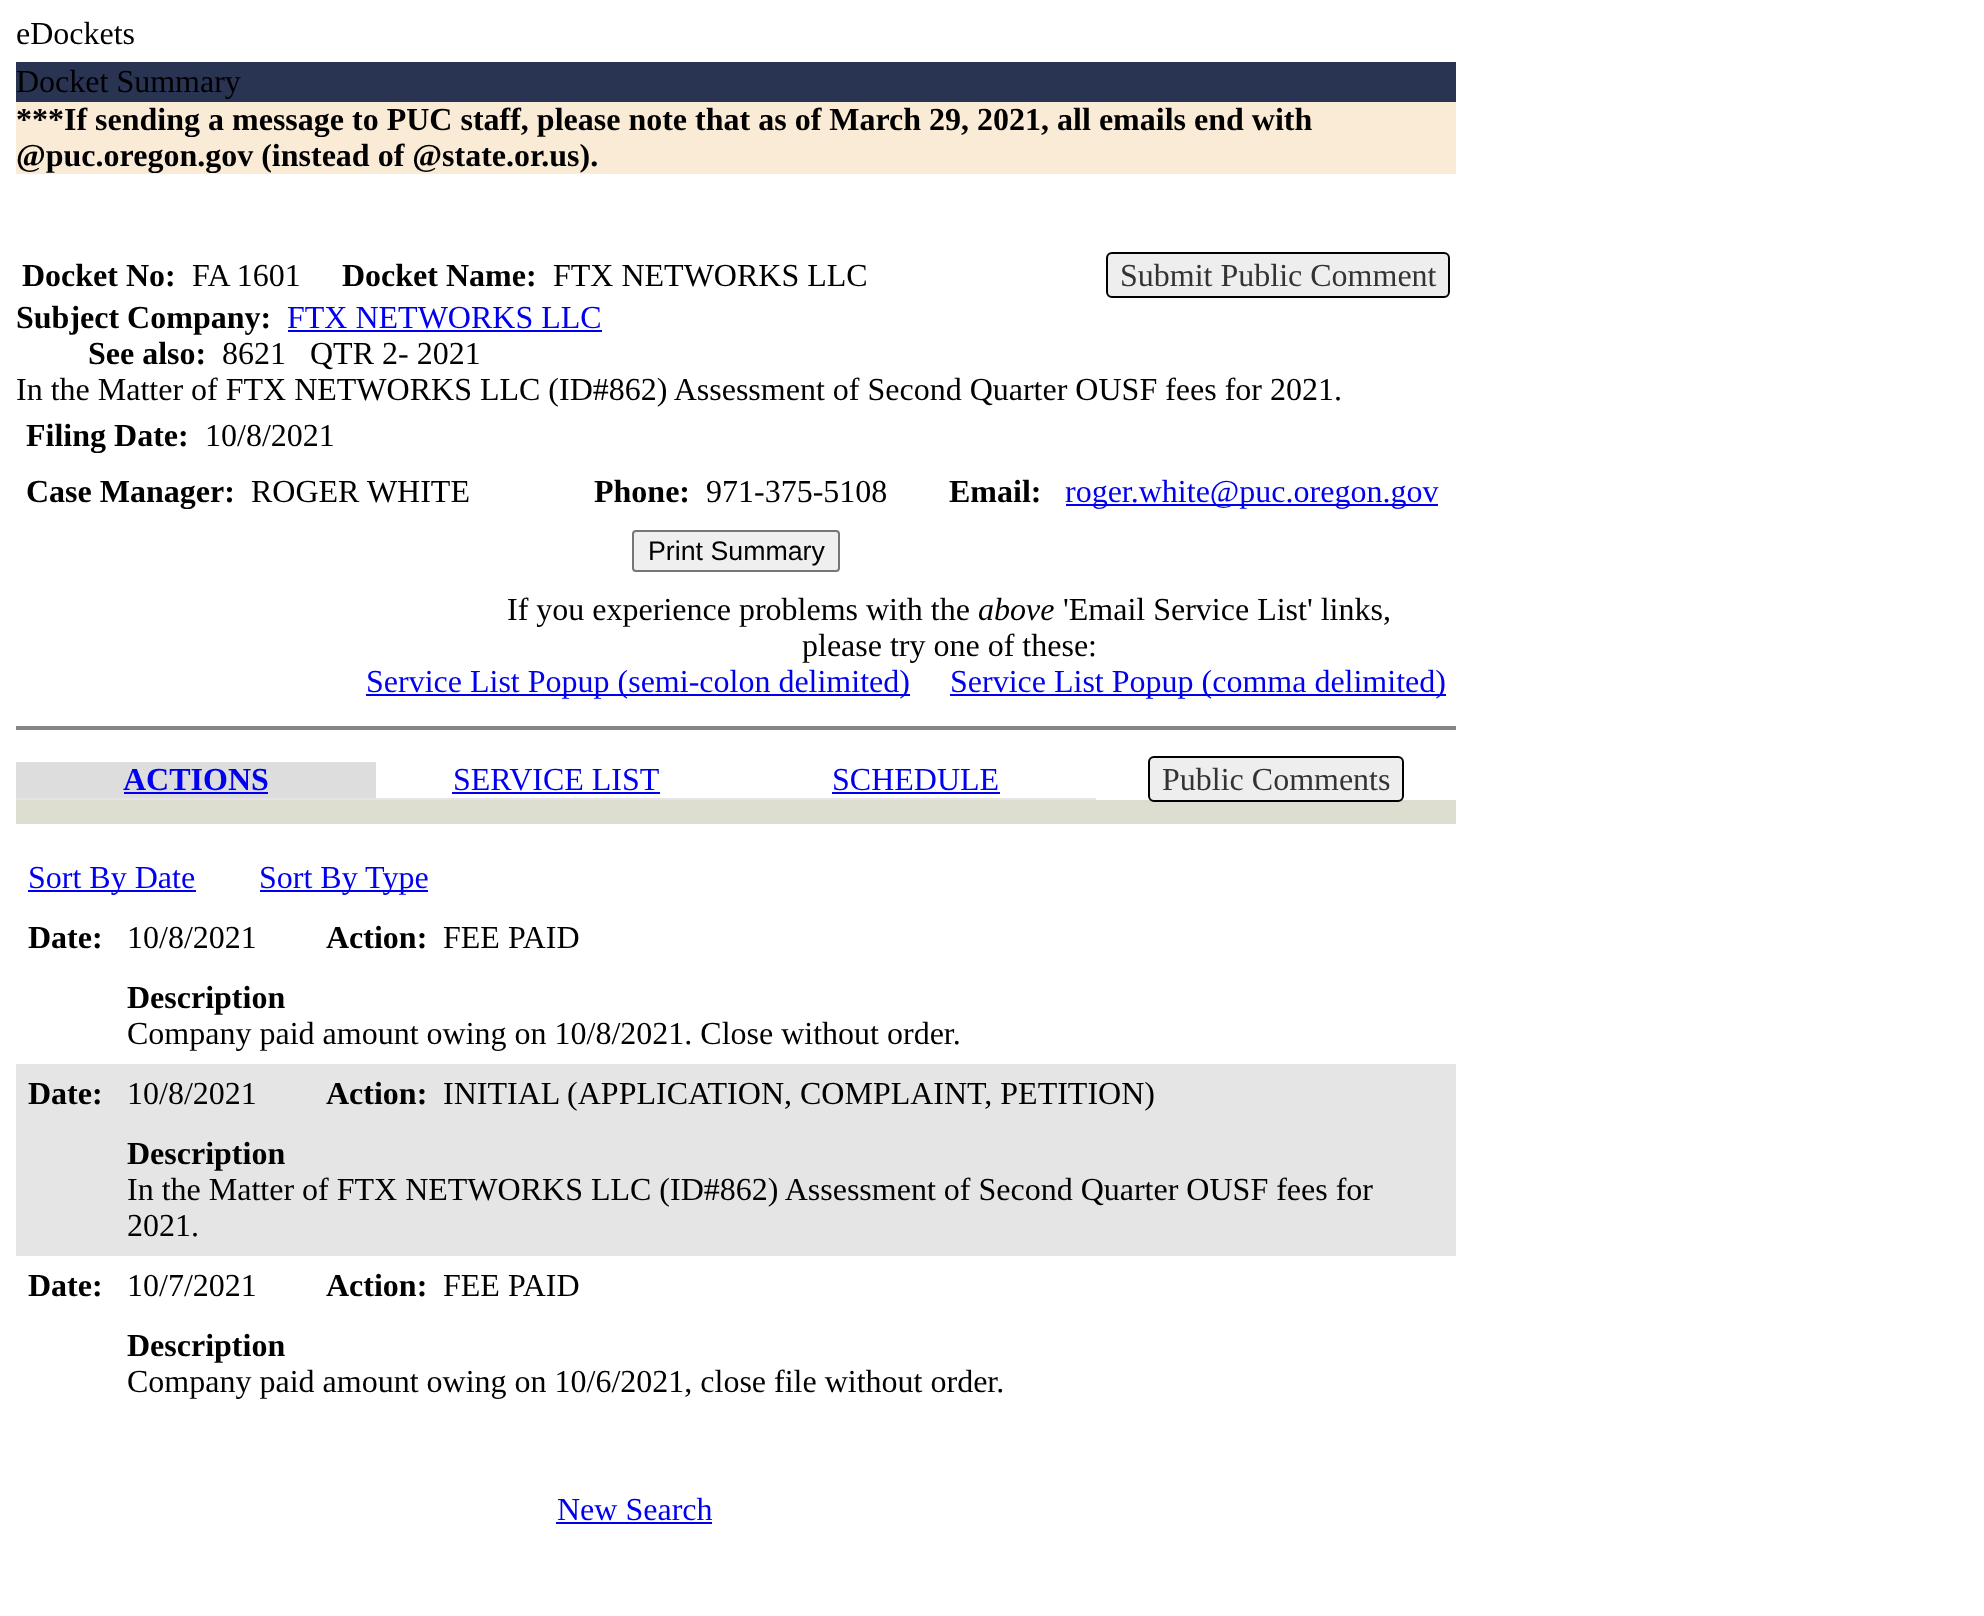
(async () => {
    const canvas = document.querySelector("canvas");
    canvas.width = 1984;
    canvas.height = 1616;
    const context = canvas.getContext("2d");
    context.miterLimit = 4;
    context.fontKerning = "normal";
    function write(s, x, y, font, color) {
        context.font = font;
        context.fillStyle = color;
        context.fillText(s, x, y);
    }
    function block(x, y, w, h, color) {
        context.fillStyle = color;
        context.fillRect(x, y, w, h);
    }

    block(0, 0, 1984, 1616, "rgb(255, 255, 255)");
    write("eDockets", 16, 44, "32px Liberation Serif", "rgb(0, 0, 0)");
    block(16, 62, 1440, 40, "rgb(41, 51, 82)");
    write("Docket Summary", 16, 92, "32px Liberation Serif", "rgb(0, 0, 0)");
    block(16, 102, 1440, 72, "rgb(250, 235, 215)");
    write("***If sending a message to PUC staff, please note that as of March 29, 2021, all emails end with", 16, 130, "bold 32px Liberation Serif", "rgb(0, 0, 0)");
    write("@puc.oregon.gov (instead of @state.or.us).", 16, 166, "bold 32px Liberation Serif", "rgb(0, 0, 0)");
    write("Docket No:", 22, 286, "bold 32px Liberation Serif", "rgb(0, 0, 0)");
    write("FA 1601", 192, 286, "32px Liberation Serif", "rgb(0, 0, 0)");
    write("Docket Name:", 342, 286, "bold 32px Liberation Serif", "rgb(0, 0, 0)");
    write("FTX NETWORKS LLC", 553, 286, "32px Liberation Serif", "rgb(0, 0, 0)");
    context.fillStyle = "rgb(238, 238, 238)";
    context.beginPath();
    context.roundRect(1107, 253, 342, 44, 5);
    context.fill();
    context.strokeStyle = "rgb(0, 0, 0)";
    context.lineWidth = 2;
    context.stroke();
    write("Submit Public Comment", 1120, 286, "32px Liberation Serif", "rgb(51, 51, 51)");
    write("Subject Company:", 16, 328, "bold 32px Liberation Serif", "rgb(0, 0, 0)");
    write("FTX NETWORKS LLC", 287, 328, "32px Liberation Serif", "rgb(0, 0, 238)");
    block(288, 330, 314, 2, "rgb(0, 0, 238)");
    write("See also:", 88, 364, "bold 32px Liberation Serif", "rgb(0, 0, 0)");
    write("8621   QTR 2- 2021", 222, 364, "32px Liberation Serif", "rgb(0, 0, 0)");
    write("In the Matter of FTX NETWORKS LLC (ID#862) Assessment of Second Quarter OUSF fees for 2021.", 16, 400, "32px Liberation Serif", "rgb(0, 0, 0)");
    write("Filing Date:", 26, 446, "bold 32px Liberation Serif", "rgb(0, 0, 0)");
    write("10/8/2021", 205, 446, "32px Liberation Serif", "rgb(0, 0, 0)");
    write("Case Manager:", 26, 502, "bold 32px Liberation Serif", "rgb(0, 0, 0)");
    write("ROGER WHITE", 251, 502, "32px Liberation Serif", "rgb(0, 0, 0)");
    write("Phone:", 594, 502, "bold 32px Liberation Serif", "rgb(0, 0, 0)");
    write("971-375-5108", 706, 502, "32px Liberation Serif", "rgb(0, 0, 0)");
    write("Email:", 949, 502, "bold 32px Liberation Serif", "rgb(0, 0, 0)");
    block(1066, 504, 372, 2, "rgb(0, 0, 238)");
    write("roger.white@puc.oregon.gov", 1065, 502, "32px Liberation Serif", "rgb(0, 0, 238)");
    context.fillStyle = "rgb(239, 239, 239)";
    context.beginPath();
    context.roundRect(633, 531, 206, 40, 3);
    context.fill();
    context.strokeStyle = "rgb(118, 118, 118)";
    context.stroke();
    write("Print Summary", 648, 560, "26.75px Liberation Sans", "rgb(0, 0, 0)");
    write("If you experience problems with the", 507, 620, "32px Liberation Serif", "rgb(0, 0, 0)");
    write("above", 978, 620, "italic 32px Liberation Serif", "rgb(0, 0, 0)");
    write("'Email Service List' links,", 1063, 620, "32px Liberation Serif", "rgb(0, 0, 0)");
    write("please try one of these:", 802, 656, "32px Liberation Serif", "rgb(0, 0, 0)");
    block(366, 694, 544, 2, "rgb(0, 0, 238)");
    write("Service List Popup (semi-colon delimited)", 366, 692, "32px Liberation Serif", "rgb(0, 0, 238)");
    block(950, 694, 496, 2, "rgb(0, 0, 238)");
    write("Service List Popup (comma delimited)", 950, 692, "32px Liberation Serif", "rgb(0, 0, 238)");
    block(16, 726, 1440, 4, "rgb(133, 133, 133)");
    block(16, 762, 360, 36, "rgb(221, 221, 221)");
    write("ACTIONS", 123, 790, "bold 32px Liberation Serif", "rgb(0, 0, 238)");
    block(124, 792, 144, 2, "rgb(0, 0, 238)");
    write("SERVICE LIST", 453, 790, "32px Liberation Serif", "rgb(0, 0, 238)");
    block(452, 792, 208, 2, "rgb(0, 0, 238)");
    write("SCHEDULE", 832, 790, "32px Liberation Serif", "rgb(0, 0, 238)");
    block(832, 792, 168, 2, "rgb(0, 0, 238)");
    block(16, 800, 1440, 24, "rgb(221, 221, 208)");
    context.fillStyle = "rgb(238, 238, 238)";
    context.beginPath();
    context.roundRect(1149, 757, 254, 44, 5);
    context.fill();
    context.strokeStyle = "rgb(0, 0, 0)";
    context.stroke();
    write("Public Comments", 1162, 790, "32px Liberation Serif", "rgb(51, 51, 51)");
    block(16, 798, 1080, 2, "rgb(229, 229, 229)");
    block(28, 890, 168, 2, "rgb(0, 0, 238)");
    write("Sort By Date", 28, 888, "32px Liberation Serif", "rgb(0, 0, 238)");
    block(260, 890, 168, 2, "rgb(0, 0, 238)");
    write("Sort By Type", 259, 888, "32px Liberation Serif", "rgb(0, 0, 238)");
    write("Date:", 28, 948, "bold 32px Liberation Serif", "rgb(0, 0, 0)");
    write("10/8/2021", 127, 948, "32px Liberation Serif", "rgb(0, 0, 0)");
    write("Action:", 326, 948, "bold 32px Liberation Serif", "rgb(0, 0, 0)");
    write("FEE PAID", 443, 948, "32px Liberation Serif", "rgb(0, 0, 0)");
    write("Description", 127, 1008, "bold 32px Liberation Serif", "rgb(0, 0, 0)");
    write("Company paid amount owing on 10/8/2021. Close without order.", 127, 1044, "32px Liberation Serif", "rgb(0, 0, 0)");
    block(16, 1064, 1440, 192, "rgb(229, 229, 229)");
    write("Date:", 28, 1104, "bold 32px Liberation Serif", "rgb(0, 0, 0)");
    write("10/8/2021", 127, 1104, "32px Liberation Serif", "rgb(0, 0, 0)");
    write("Action:", 326, 1104, "bold 32px Liberation Serif", "rgb(0, 0, 0)");
    write("INITIAL (APPLICATION, COMPLAINT, PETITION)", 443, 1104, "32px Liberation Serif", "rgb(0, 0, 0)");
    write("Description", 127, 1164, "bold 32px Liberation Serif", "rgb(0, 0, 0)");
    write("In the Matter of FTX NETWORKS LLC (ID#862) Assessment of Second Quarter OUSF fees for", 127, 1200, "32px Liberation Serif", "rgb(0, 0, 0)");
    write("2021.", 127, 1236, "32px Liberation Serif", "rgb(0, 0, 0)");
    write("Date:", 28, 1296, "bold 32px Liberation Serif", "rgb(0, 0, 0)");
    write("10/7/2021", 127, 1296, "32px Liberation Serif", "rgb(0, 0, 0)");
    write("Action:", 326, 1296, "bold 32px Liberation Serif", "rgb(0, 0, 0)");
    write("FEE PAID", 443, 1296, "32px Liberation Serif", "rgb(0, 0, 0)");
    write("Description", 127, 1356, "bold 32px Liberation Serif", "rgb(0, 0, 0)");
    write("Company paid amount owing on 10/6/2021, close file without order.", 127, 1392, "32px Liberation Serif", "rgb(0, 0, 0)");
    write("New Search", 557, 1520, "32px Liberation Serif", "rgb(0, 0, 238)");
    block(556, 1522, 156, 2, "rgb(0, 0, 238)");
})();
